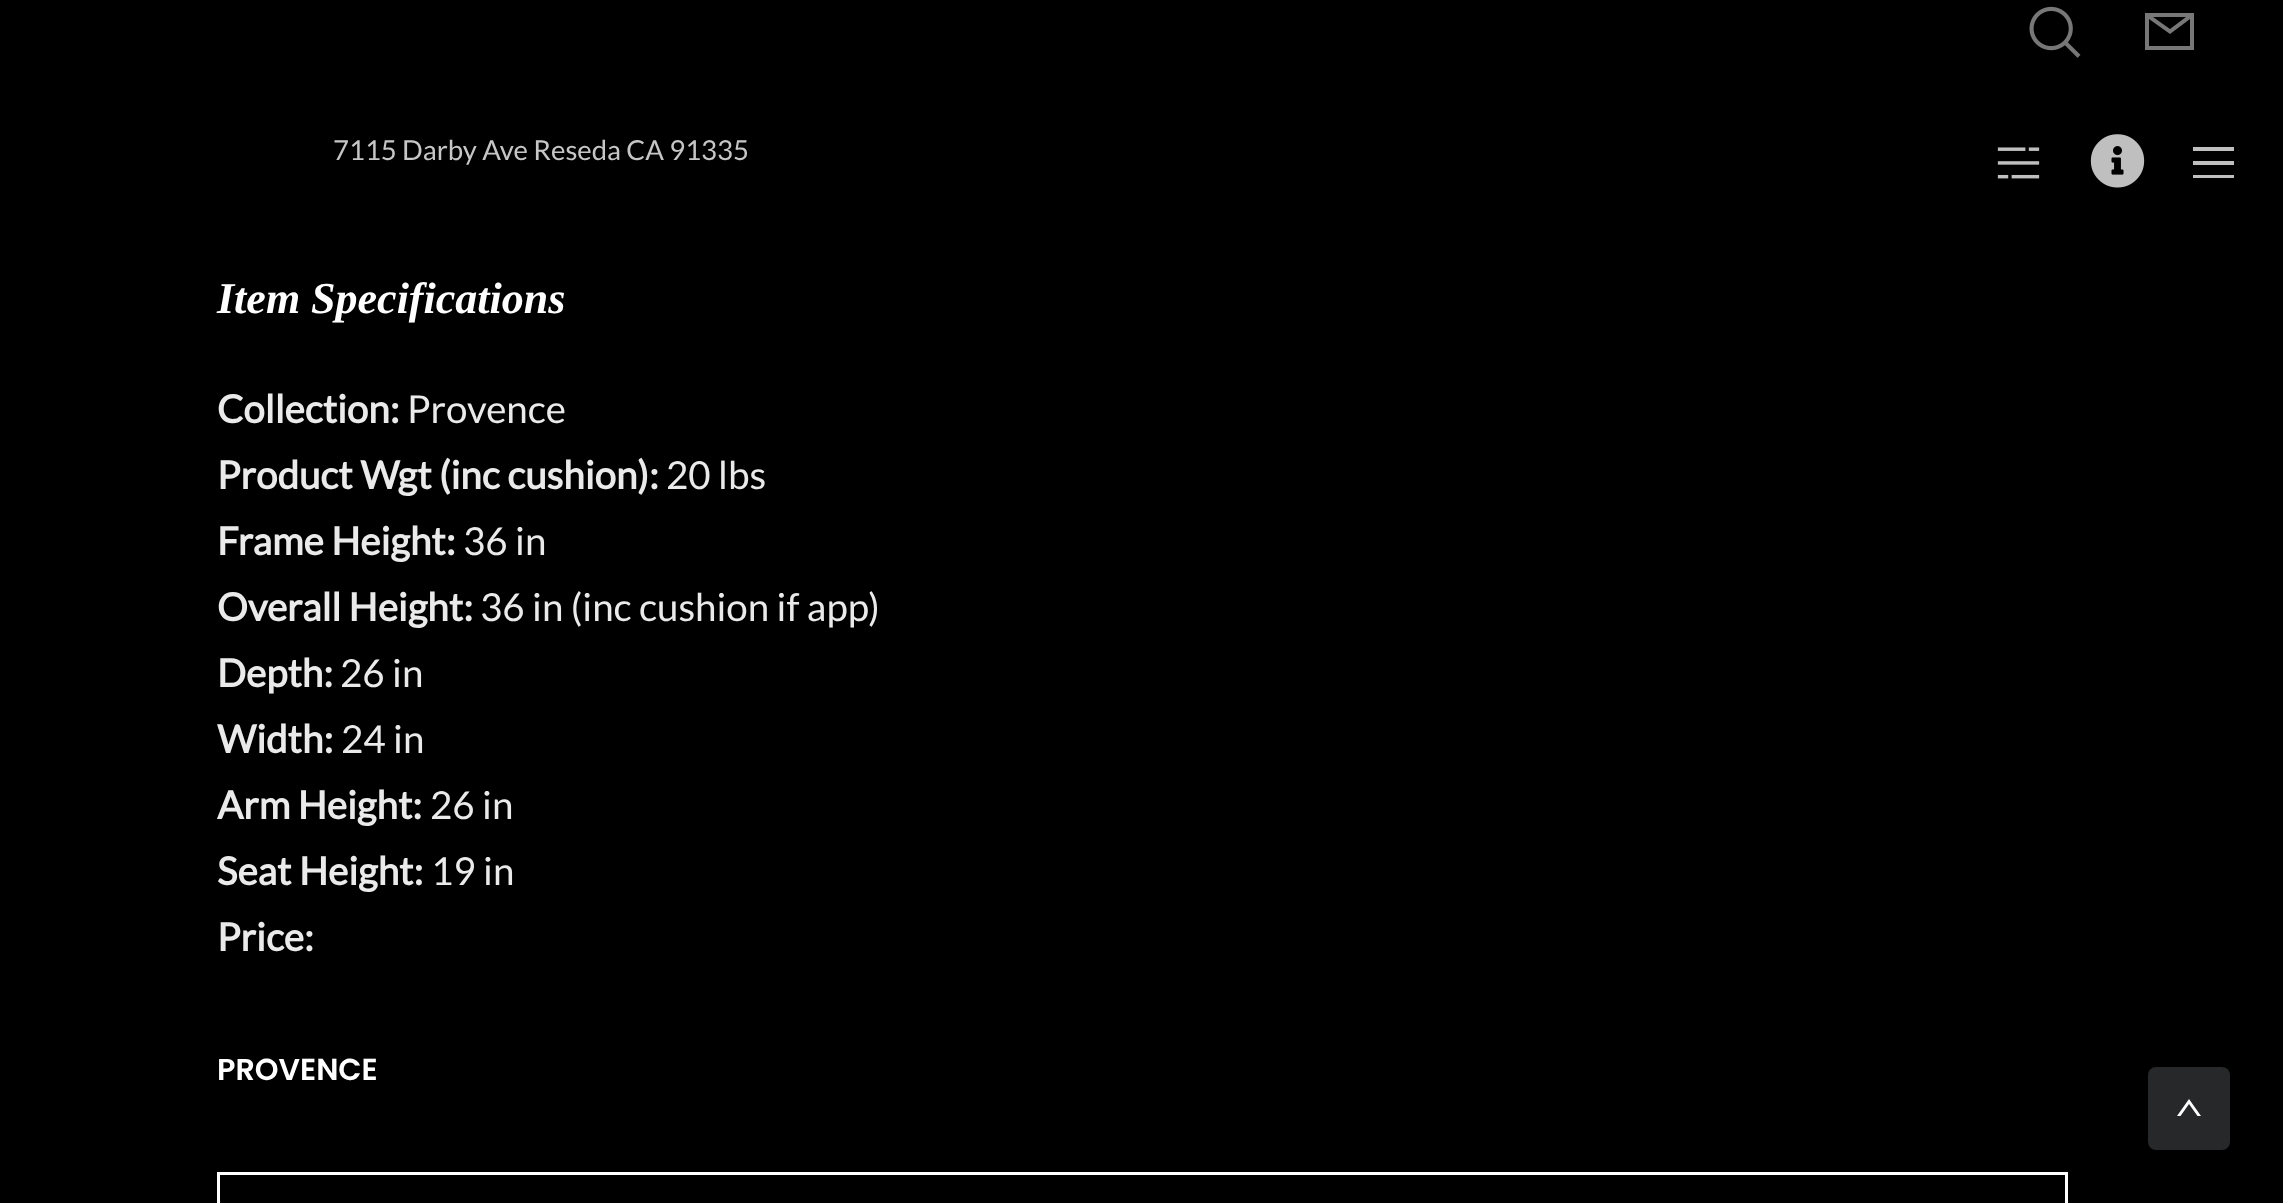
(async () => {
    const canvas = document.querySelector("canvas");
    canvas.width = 2283;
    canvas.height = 1203;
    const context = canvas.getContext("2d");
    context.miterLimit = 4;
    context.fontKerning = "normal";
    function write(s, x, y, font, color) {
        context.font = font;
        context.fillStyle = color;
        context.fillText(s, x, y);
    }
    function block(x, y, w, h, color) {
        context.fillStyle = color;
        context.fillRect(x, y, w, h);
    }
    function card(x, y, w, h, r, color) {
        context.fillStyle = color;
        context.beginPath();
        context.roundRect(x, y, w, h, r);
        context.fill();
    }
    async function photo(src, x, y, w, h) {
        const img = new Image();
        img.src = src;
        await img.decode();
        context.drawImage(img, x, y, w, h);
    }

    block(0, 0, 2283, 1203, "rgb(0, 0, 0)");
    await photo("media/1.png", 2029, 6, 52, 52);
    context.fillStyle = "rgb(119, 119, 119)";
    context.beginPath();
    context.moveTo(2145, 13);
    context.lineTo(2145, 50);
    context.lineTo(2194, 50);
    context.lineTo(2194, 13);
    context.closePath();
    context.moveTo(2186, 17);
    context.lineTo(2170, 29);
    context.lineTo(2153, 17);
    context.closePath();
    context.moveTo(2149, 46);
    context.lineTo(2149, 19);
    context.lineTo(2170, 34);
    context.lineTo(2190, 19);
    context.lineTo(2190, 46);
    context.closePath();
    context.fill();
    write("7115 Darby Ave Reseda CA 91335", 333, 160, "27.5px Lato", "rgb(198, 198, 198)");
    await photo("media/2.png", 1997, 147, 43, 32);
    await photo("media/3.png", 2090, 134, 55, 54);
    context.fillStyle = "rgb(191, 191, 191)";
    context.beginPath();
    context.moveTo(2193, 161);
    context.lineTo(2234, 161);
    context.lineTo(2234, 165);
    context.lineTo(2193, 165);
    context.closePath();
    context.moveTo(2193, 147);
    context.lineTo(2234, 147);
    context.lineTo(2234, 151);
    context.lineTo(2193, 151);
    context.closePath();
    context.moveTo(2193, 175);
    context.lineTo(2234, 175);
    context.lineTo(2234, 178);
    context.lineTo(2193, 178);
    context.closePath();
    context.fill();
    write("Item Specifications", 217, 313, "italic bold 44px Liberation Serif", "rgb(255, 255, 255)");
    write("Collection:", 217, 423, "bold 38.5px Lato", "rgb(234, 234, 234)");
    write("Provence", 407, 423, "38.5px Lato", "rgb(234, 234, 234)");
    write("Product Wgt (inc cushion):", 217, 489, "bold 38.5px Lato", "rgb(234, 234, 234)");
    write("20 lbs", 666, 489, "38.5px Lato", "rgb(234, 234, 234)");
    write("Frame Height:", 217, 555, "bold 38.5px Lato", "rgb(234, 234, 234)");
    write("36 in", 463, 555, "38.5px Lato", "rgb(234, 234, 234)");
    write("Overall Height:", 217, 621, "bold 38.5px Lato", "rgb(234, 234, 234)");
    write("36 in (inc cushion if app)", 480, 621, "38.5px Lato", "rgb(234, 234, 234)");
    write("Depth:", 217, 687, "bold 38.5px Lato", "rgb(234, 234, 234)");
    write("26 in", 340, 687, "38.5px Lato", "rgb(234, 234, 234)");
    write("Width:", 217, 753, "bold 38.5px Lato", "rgb(234, 234, 234)");
    write("24 in", 341, 753, "38.5px Lato", "rgb(234, 234, 234)");
    write("Arm Height:", 217, 819, "bold 38.5px Lato", "rgb(234, 234, 234)");
    write("26 in", 430, 819, "38.5px Lato", "rgb(234, 234, 234)");
    write("Seat Height:", 217, 885, "bold 38.5px Lato", "rgb(234, 234, 234)");
    write("19 in", 431, 885, "38.5px Lato", "rgb(234, 234, 234)");
    write("Price:", 217, 951, "bold 38.5px Lato", "rgb(234, 234, 234)");
    write("PROVENCE", 217, 1080, "600 30.25px Poppins", "rgb(255, 255, 255)");
    context.strokeStyle = "rgb(255, 255, 255)";
    context.lineWidth = 3;
    context.strokeRect(218.5, 1173.5, 1848, 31);
    card(2148, 1067, 82, 83, 8, "rgb(38, 40, 41)");
    context.fillStyle = "rgb(255, 255, 255)";
    context.beginPath();
    context.moveTo(2177, 1116);
    context.lineTo(2180.5, 1116);
    context.lineTo(2189, 1104);
    context.lineTo(2197.5, 1116);
    context.lineTo(2201, 1116);
    context.lineTo(2189, 1099);
    context.closePath();
    context.fill();
})();
